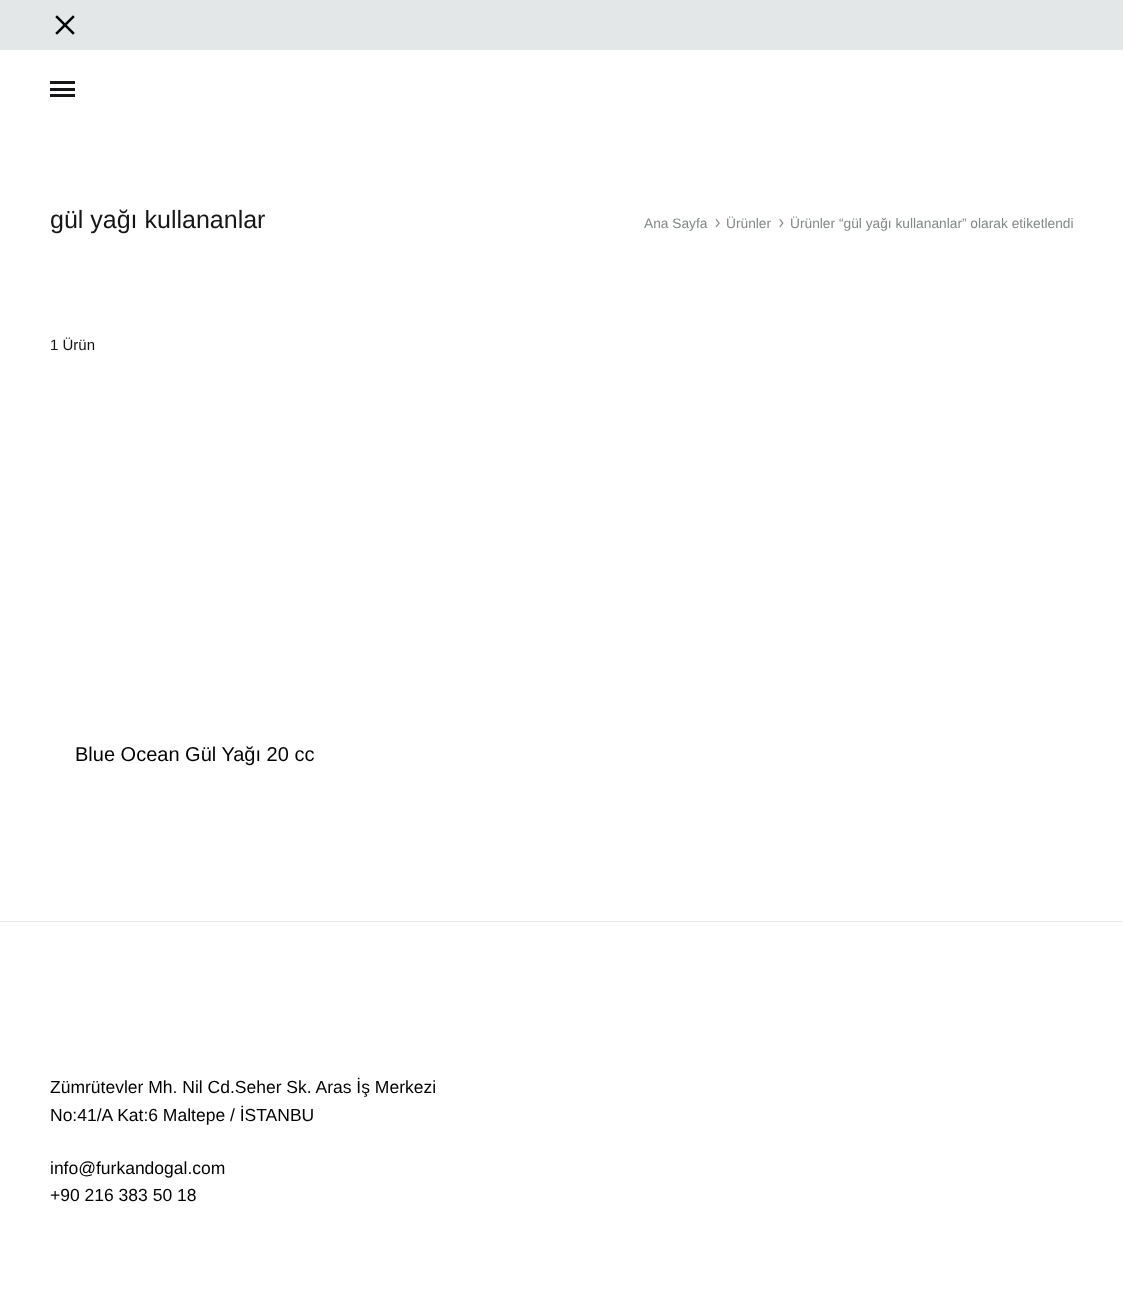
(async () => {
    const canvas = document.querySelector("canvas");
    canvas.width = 1123;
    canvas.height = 1312;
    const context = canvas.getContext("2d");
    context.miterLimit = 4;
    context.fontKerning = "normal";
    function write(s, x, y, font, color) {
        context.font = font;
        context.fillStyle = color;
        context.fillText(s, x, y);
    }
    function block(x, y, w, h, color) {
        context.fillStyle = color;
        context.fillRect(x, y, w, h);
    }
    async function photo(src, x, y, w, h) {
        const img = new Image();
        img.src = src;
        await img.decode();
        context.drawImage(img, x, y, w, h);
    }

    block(0, 0, 1123, 1312, "rgb(255, 255, 255)");
    block(0, 0, 1123, 50, "rgb(227, 231, 232)");
    await photo("media/1.png", 55, 15, 20, 20);
    block(50, 88, 25, 3, "rgb(22, 22, 25)");
    block(50, 81, 25, 3, "rgb(22, 22, 25)");
    block(50, 94, 25, 3, "rgb(22, 22, 25)");
    write("gül yağı kullananlar", 50, 228, "25px Liberation Sans", "rgb(22, 22, 25)");
    write("Ana Sayfa", 644, 228, "13.75px Liberation Sans", "rgb(131, 136, 137)");
    await photo("media/2.png", 715, 219, 5, 9);
    write("Ürünler", 726, 228, "13.75px Liberation Sans", "rgb(131, 136, 137)");
    await photo("media/3.png", 779, 219, 5, 9);
    write("Ürünler “gül yağı kullananlar” olarak etiketlendi", 790, 228, "13.75px Liberation Sans", "rgb(131, 136, 137)");
    write("1 Ürün", 50, 350, "15px Liberation Sans", "rgb(22, 22, 25)");
    write("Blue Ocean Gül Yağı 20 cc", 75, 761, "20px Liberation Sans", "rgb(0, 0, 0)");
    block(0, 921, 1123, 1, "rgb(227, 231, 232)");
    write("Zümrütevler Mh. Nil Cd.Seher Sk. Aras İş Merkezi", 50, 1093, "17.5px Liberation Sans", "rgb(0, 0, 0)");
    write("No:41/A Kat:6 Maltepe / İSTANBU", 50, 1121, "17.5px Liberation Sans", "rgb(0, 0, 0)");
    write("info@furkandogal.com", 50, 1174, "17.5px Liberation Sans", "rgb(0, 0, 0)");
    write("+90 216 383 50 18", 50, 1201, "17.5px Liberation Sans", "rgb(0, 0, 0)");
})();
